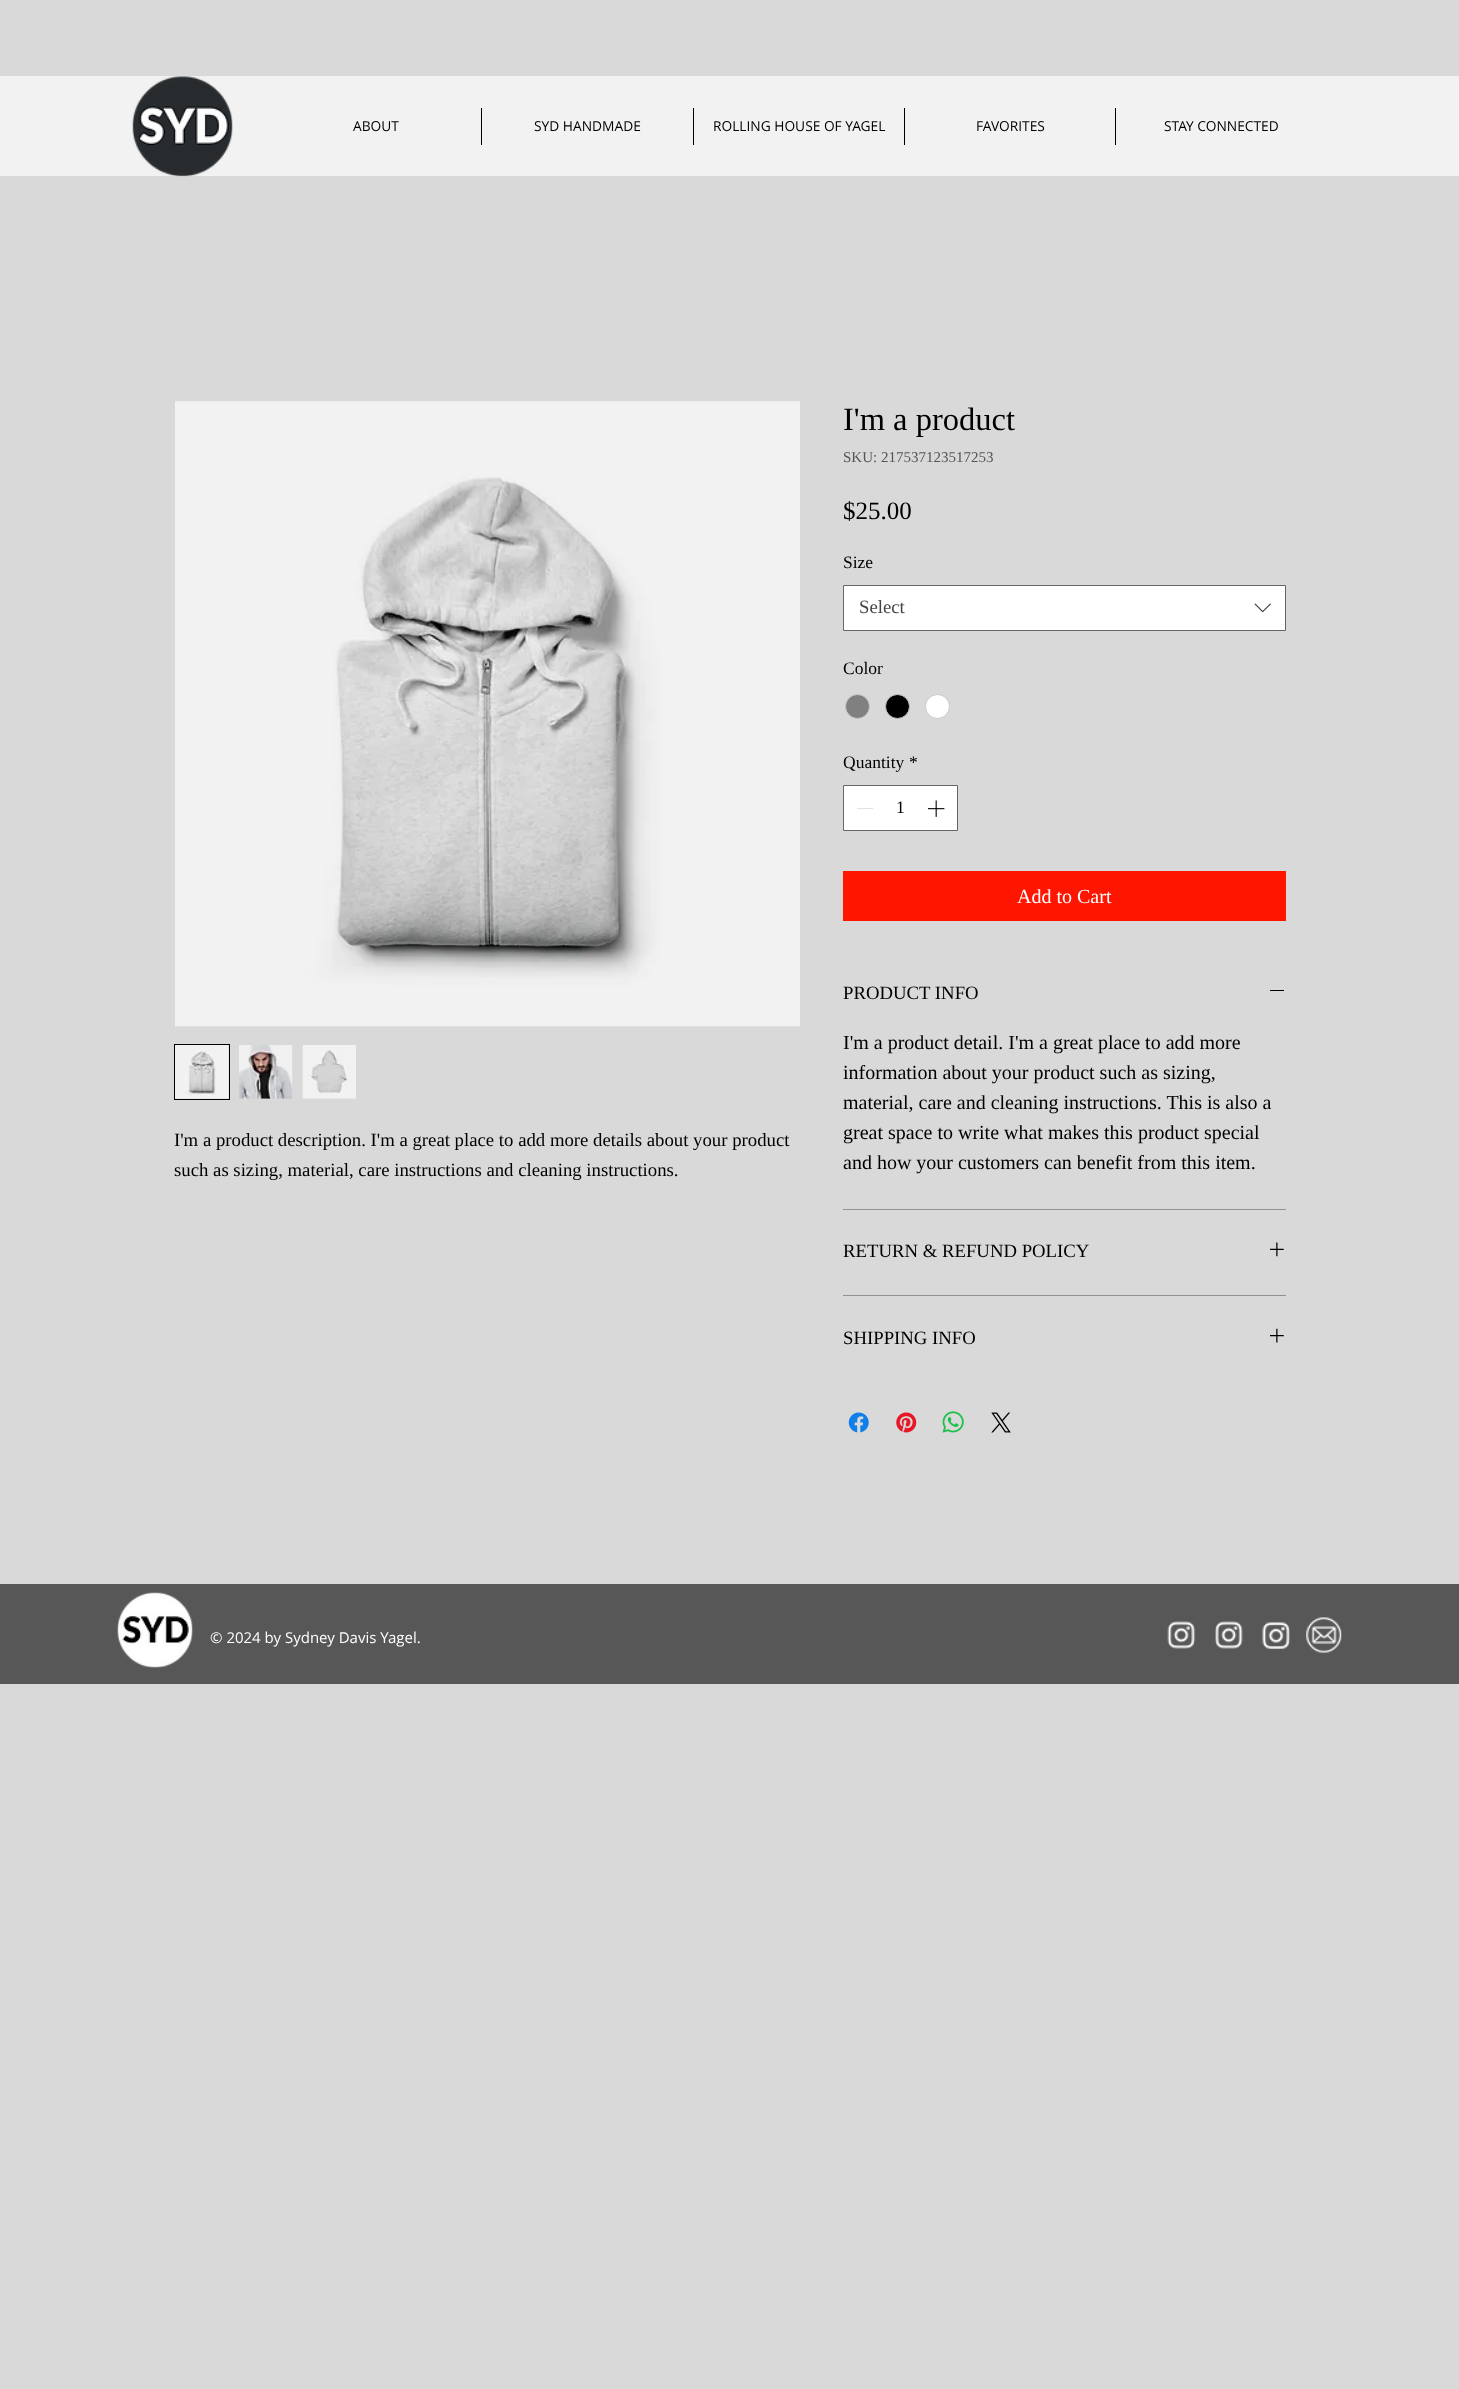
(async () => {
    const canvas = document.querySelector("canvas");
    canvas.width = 1459;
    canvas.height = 2389;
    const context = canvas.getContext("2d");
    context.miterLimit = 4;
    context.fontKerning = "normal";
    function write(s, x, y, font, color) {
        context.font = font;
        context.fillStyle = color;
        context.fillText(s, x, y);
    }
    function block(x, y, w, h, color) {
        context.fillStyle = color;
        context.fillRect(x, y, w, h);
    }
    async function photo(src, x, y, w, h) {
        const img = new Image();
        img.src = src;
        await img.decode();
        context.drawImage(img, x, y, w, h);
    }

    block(0, 0, 1459, 2389, "rgb(217, 217, 217)");
    block(0, 76, 1459, 100, "rgb(242, 242, 242)");
    await photo("media/1.png", 132, 76, 101, 101);
    write("ABOUT", 353, 131, "13.75px Open Sans", "rgb(0, 0, 0)");
    block(481, 108, 1, 37, "rgb(0, 0, 0)");
    write("SYD HANDMADE", 534, 131, "13.75px Open Sans", "rgb(0, 0, 0)");
    block(693, 108, 1, 37, "rgb(0, 0, 0)");
    write("ROLLING HOUSE OF YAGEL", 713, 131, "13.75px Open Sans", "rgb(0, 0, 0)");
    block(904, 108, 1, 37, "rgb(0, 0, 0)");
    write("FAVORITES", 976, 131, "13.75px Open Sans", "rgb(0, 0, 0)");
    block(1115, 108, 1, 37, "rgb(0, 0, 0)");
    write("STAY CONNECTED", 1164, 131, "13.75px Open Sans", "rgb(0, 0, 0)");
    await photo("media/2.png", 175, 401, 625, 626);
    context.strokeStyle = "rgb(0, 0, 0)";
    context.strokeRect(174.5, 1044.5, 55, 55);
    await photo("media/3.png", 175, 1045, 54, 54);
    await photo("media/4.png", 239, 1045, 54, 54);
    await photo("media/5.png", 302, 1045, 54, 54);
    write("I'm a product description. I'm a great place to add more details about your product", 174, 1146, "18.75px Liberation Serif", "rgb(0, 0, 0)");
    write("such as sizing, material, care instructions and cleaning instructions.", 174, 1176, "18.75px Liberation Serif", "rgb(0, 0, 0)");
    write("I'm a product", 843, 430, "32.5px Liberation Serif", "rgb(0, 0, 0)");
    write("SKU: 217537123517253", 843, 462, "15px Liberation Serif", "rgb(84, 84, 84)");
    write("$25.00", 843, 519, "25px Liberation Serif", "rgb(0, 0, 0)");
    write("Size", 843, 568, "17.5px Liberation Serif", "rgb(0, 0, 0)");
    context.fillStyle = "rgb(255, 255, 255)";
    context.beginPath();
    context.rect(843.5, 585.5, 442, 45);
    context.fill();
    context.strokeStyle = "rgb(102, 102, 102)";
    context.stroke();
    write("Select", 859, 613, "18.75px Liberation Serif", "rgb(68, 68, 68)");
    await photo("media/6.png", 1254, 603, 17, 10);
    write("Color", 843, 674, "17.5px Liberation Serif", "rgb(0, 0, 0)");
    context.fillStyle = "rgb(128, 128, 128)";
    context.beginPath();
    context.arc(857.5, 706.5, 12, 0, Math.PI * 2);
    context.fill();
    context.strokeStyle = "rgb(201, 201, 201)";
    context.stroke();
    context.fillStyle = "rgb(0, 0, 0)";
    context.beginPath();
    context.arc(897.5, 706.5, 12, 0, Math.PI * 2);
    context.fill();
    context.stroke();
    context.fillStyle = "rgb(255, 255, 255)";
    context.beginPath();
    context.arc(937.5, 706.5, 12, 0, Math.PI * 2);
    context.fill();
    context.stroke();
    write("Quantity", 843, 768, "17.5px Liberation Serif", "rgb(0, 0, 0)");
    write("*", 909, 768, "17.5px Liberation Serif", "rgb(0, 0, 0)");
    context.fillStyle = "rgb(255, 255, 255)";
    context.beginPath();
    context.rect(843.5, 785.5, 114, 45);
    context.fill();
    context.strokeStyle = "rgb(102, 102, 102)";
    context.stroke();
    block(857, 808, 16, 1, "rgb(227, 227, 227)");
    write("1", 896, 813, "17.5px Liberation Serif", "rgb(0, 0, 0)");
    await photo("media/7.png", 927, 800, 18, 17);
    block(843, 871, 443, 50, "rgb(255, 21, 0)");
    write("Add to Cart", 1017, 903, "20px Liberation Serif", "rgb(255, 255, 255)");
    block(843, 1209, 443, 1, "rgb(146, 146, 146)");
    write("PRODUCT INFO", 843, 999, "18.75px Liberation Serif", "rgb(0, 0, 0)");
    block(1270, 990, 14, 1, "rgb(0, 0, 0)");
    write("I'm a product detail. I'm a great place to add more", 843, 1049, "20px Liberation Serif", "rgb(0, 0, 0)");
    write("information about your product such as sizing,", 843, 1079, "20px Liberation Serif", "rgb(0, 0, 0)");
    write("material, care and cleaning instructions. This is also a", 843, 1109, "20px Liberation Serif", "rgb(0, 0, 0)");
    write("great space to write what makes this product special", 843, 1139, "20px Liberation Serif", "rgb(0, 0, 0)");
    write("and how your customers can benefit from this item.", 843, 1169, "20px Liberation Serif", "rgb(0, 0, 0)");
    block(843, 1295, 443, 1, "rgb(146, 146, 146)");
    write("RETURN & REFUND POLICY", 843, 1257, "18.75px Liberation Serif", "rgb(0, 0, 0)");
    await photo("media/8.png", 1270, 1242, 14, 15);
    write("SHIPPING INFO", 843, 1344, "18.75px Liberation Serif", "rgb(0, 0, 0)");
    await photo("media/9.png", 1270, 1328, 14, 15);
    await photo("media/10.png", 848, 1412, 21, 21);
    await photo("media/11.png", 896, 1412, 21, 21);
    await photo("media/12.png", 942, 1411, 22, 22);
    await photo("media/13.png", 991, 1412, 20, 21);
    block(0, 1584, 1459, 100, "rgb(87, 87, 87)");
    await photo("media/14.png", 117, 1592, 76, 76);
    write("© 2024 by Sydney Davis Yagel.", 210, 1643, "15px Open Sans", "rgb(255, 255, 255)");
    await photo("media/15.png", 1167, 1621, 29, 28);
    await photo("media/16.png", 1215, 1621, 28, 28);
    await photo("media/17.png", 1262, 1621, 29, 29);
    await photo("media/18.png", 1306, 1617, 36, 36);
})();
